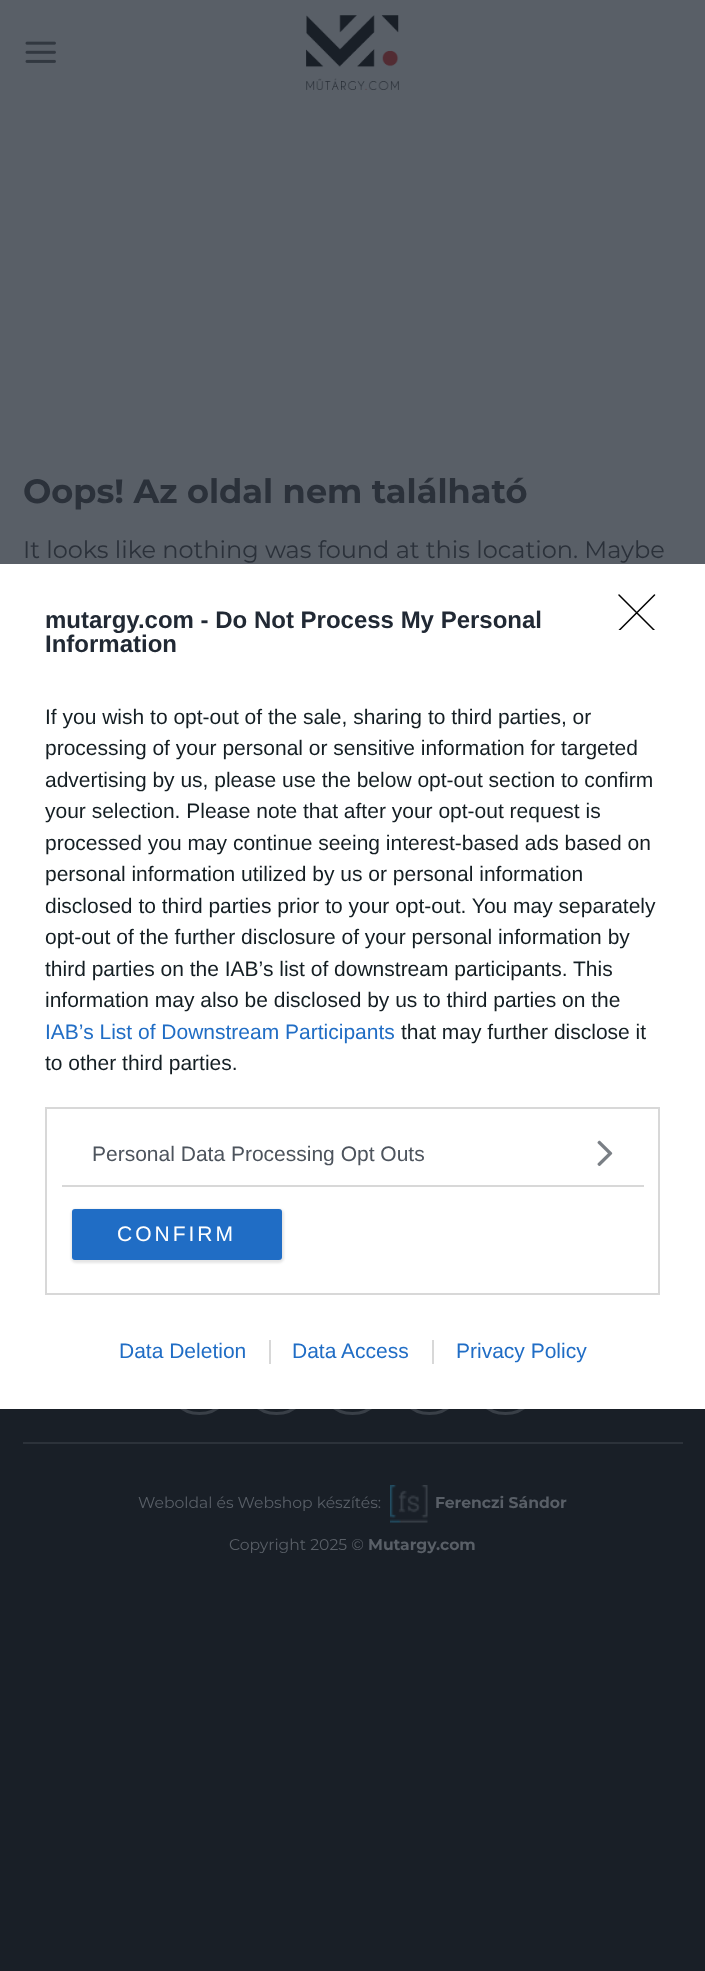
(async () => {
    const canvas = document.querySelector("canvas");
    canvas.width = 705;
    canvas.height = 1971;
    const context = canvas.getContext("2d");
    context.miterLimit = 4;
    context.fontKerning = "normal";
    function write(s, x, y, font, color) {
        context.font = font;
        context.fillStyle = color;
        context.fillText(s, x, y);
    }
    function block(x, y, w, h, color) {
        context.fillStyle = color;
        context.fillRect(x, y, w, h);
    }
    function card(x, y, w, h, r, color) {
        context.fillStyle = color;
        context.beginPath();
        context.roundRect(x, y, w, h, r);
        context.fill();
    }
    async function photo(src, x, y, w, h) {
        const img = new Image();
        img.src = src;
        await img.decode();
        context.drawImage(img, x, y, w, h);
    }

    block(0, 0, 705, 1971, "rgb(25, 31, 39)");
    block(0, 0, 705, 564, "rgb(89, 95, 103)");
    await photo("media/1.png", 25, 41, 31, 22);
    await photo("media/2.png", 306, 15, 93, 75);
    write("Oops! Az oldal nem található", 23, 503, "bold 33.6px Montserrat", "rgb(43, 49, 58)");
    write("It looks like nothing was found at this location. Maybe", 23, 558, "24px Montserrat", "rgb(43, 49, 58)");
    context.beginPath();
    context.roundRect(166.5, 1345.5, 66, 68, 33);
    context.strokeStyle = "rgb(57, 63, 71)";
    context.lineWidth = 3;
    context.stroke();
    context.beginPath();
    context.roundRect(243.5, 1345.5, 66, 68, 33);
    context.stroke();
    context.beginPath();
    context.roundRect(319.5, 1345.5, 66, 68, 33);
    context.stroke();
    context.beginPath();
    context.roundRect(396.5, 1345.5, 66, 68, 33);
    context.stroke();
    context.beginPath();
    context.roundRect(472.5, 1345.5, 66, 68, 33);
    context.stroke();
    block(23, 1442, 660, 2, "rgb(44, 50, 58)");
    write("Weboldal és Webshop készítés:", 138, 1508, "15.6px Montserrat", "rgb(89, 95, 103)");
    await photo("media/3.png", 390, 1485, 38, 38);
    write("Ferenczi Sándor", 435, 1508, "bold 15.6px Montserrat", "rgb(89, 95, 103)");
    write("Copyright 2025 ©", 229, 1550, "15.6px Montserrat", "rgb(89, 95, 103)");
    write("Mutargy.com", 368, 1550, "bold 15.6px Montserrat", "rgb(89, 95, 103)");
    block(0, 564, 705, 845, "rgb(255, 255, 255)");
    context.save();
    context.beginPath();
    context.rect(618, 594, 38, 36);
    context.clip();
    context.beginPath();
    context.moveTo(619, 595);
    context.lineTo(654.5, 630.5);
    context.moveTo(654.5, 595);
    context.lineTo(619, 630.5);
    context.strokeStyle = "rgb(0, 0, 0)";
    context.lineWidth = 1.5;
    context.lineCap = "round";
    context.lineJoin = "round";
    context.stroke();
    context.restore();
    write("mutargy.com - Do Not Process My Personal", 45, 628, "bold 24px Liberation Sans", "rgb(33, 41, 52)");
    write("Information", 45, 652, "bold 24px Liberation Sans", "rgb(33, 41, 52)");
    write("If you wish to opt-out of the sale, sharing to third parties, or", 45, 724, "21px Liberation Sans", "rgb(20, 30, 35)");
    write("processing of your personal or sensitive information for targeted", 45, 755, "21px Liberation Sans", "rgb(20, 30, 35)");
    write("advertising by us, please use the below opt-out section to confirm", 45, 787, "21px Liberation Sans", "rgb(20, 30, 35)");
    write("your selection. Please note that after your opt-out request is", 45, 818, "21px Liberation Sans", "rgb(20, 30, 35)");
    write("processed you may continue seeing interest-based ads based on", 45, 850, "21px Liberation Sans", "rgb(20, 30, 35)");
    write("personal information utilized by us or personal information", 45, 881, "21px Liberation Sans", "rgb(20, 30, 35)");
    write("disclosed to third parties prior to your opt-out. You may separately", 45, 913, "21px Liberation Sans", "rgb(20, 30, 35)");
    write("opt-out of the further disclosure of your personal information by", 45, 944, "21px Liberation Sans", "rgb(20, 30, 35)");
    write("third parties on the IAB’s list of downstream participants. This", 45, 976, "21px Liberation Sans", "rgb(20, 30, 35)");
    write("information may also be disclosed by us to third parties on the", 45, 1007, "21px Liberation Sans", "rgb(20, 30, 35)");
    write("IAB’s List of Downstream Participants", 45, 1039, "21px Liberation Sans", "rgb(32, 109, 197)");
    write("that may further disclose it", 401, 1039, "21px Liberation Sans", "rgb(20, 30, 35)");
    write("to other third parties.", 45, 1070, "21px Liberation Sans", "rgb(20, 30, 35)");
    context.strokeStyle = "rgb(216, 216, 216)";
    context.lineWidth = 2;
    context.strokeRect(46, 1108, 613, 186);
    block(62, 1185, 582, 2, "rgb(216, 216, 216)");
    write("Personal Data Processing Opt Outs", 92, 1161, "21px Liberation Sans", "rgb(77, 84, 93)");
    await photo("media/4.png", 597, 1140, 16, 26);
    context.fillStyle = "rgba(0, 0, 0, 0.1)";
    context.filter = "blur(1px)";
    context.beginPath();
    context.roundRect(71, 1209, 213, 54, 5);
    context.fill();
    context.filter = "none";
    card(72, 1209, 210, 51, 3, "rgb(32, 109, 197)");
    context.letterSpacing = "3px";
    write("CONFIRM", 117, 1241, "21px Liberation Sans", "rgb(255, 255, 255)");
    context.letterSpacing = "0px";
    write("Data Deletion", 119, 1358, "21px Liberation Sans", "rgb(32, 109, 197)");
    write("Data Access", 292, 1358, "21px Liberation Sans", "rgb(32, 109, 197)");
    block(269, 1340, 2, 24, "rgb(216, 216, 216)");
    write("Privacy Policy", 456, 1358, "21px Liberation Sans", "rgb(32, 109, 197)");
    block(432, 1340, 2, 24, "rgb(216, 216, 216)");
})();
